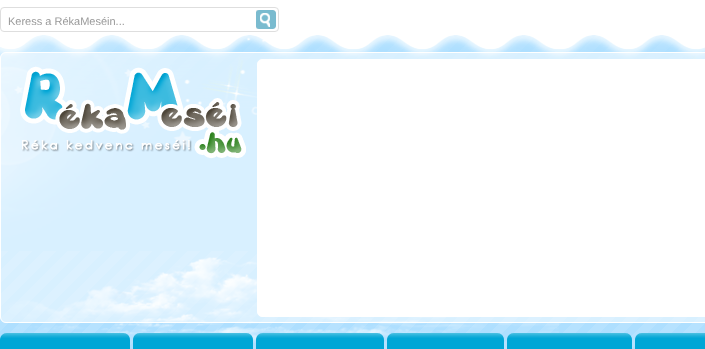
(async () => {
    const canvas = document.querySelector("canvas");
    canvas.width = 705;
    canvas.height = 349;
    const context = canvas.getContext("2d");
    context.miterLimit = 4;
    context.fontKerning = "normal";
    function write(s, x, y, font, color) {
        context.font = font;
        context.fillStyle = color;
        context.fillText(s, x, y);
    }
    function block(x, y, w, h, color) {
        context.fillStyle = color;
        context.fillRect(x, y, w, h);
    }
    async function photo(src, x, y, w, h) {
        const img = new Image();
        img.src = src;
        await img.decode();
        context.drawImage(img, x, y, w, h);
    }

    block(0, 0, 705, 349, "rgb(174, 223, 255)");
    await photo("media/1.png", 0, 35, 705, 314);
    await photo("media/2.png", 0, 0, 705, 251);
    context.beginPath();
    context.roundRect(0.5, 7.5, 278, 24, 3.5);
    context.strokeStyle = "rgb(222, 222, 222)";
    context.stroke();
    write("Keress a RékaMeséin...", 8, 25, "11px Liberation Sans", "rgb(153, 153, 153)");
    context.fillStyle = "rgb(239, 239, 239)";
    context.beginPath();
    context.roundRect(256, 10, 20, 19, [0, 3, 3, 0]);
    context.fill();
    await photo("media/3.png", 256, 10, 20, 19);
    await photo("media/4.png", 0, 52, 705, 271);
    context.beginPath();
    context.roundRect(0.5, 52.5, 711, 270, 5.5);
    context.strokeStyle = "rgb(255, 255, 255)";
    context.stroke();
    await photo("media/5.png", 20, 66, 226, 93);
    context.fillStyle = "rgb(255, 255, 255)";
    context.beginPath();
    context.roundRect(257.5, 59.5, 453, 257, 4.5);
    context.fill();
    context.stroke();
    context.fillStyle = "rgb(0, 166, 214)";
    context.beginPath();
    context.moveTo(7, 333);
    context.lineTo(123, 333);
    context.bezierCurveTo(127, 333, 130, 336, 130, 340);
    context.lineTo(130, 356);
    context.lineTo(0, 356);
    context.lineTo(0, 340);
    context.bezierCurveTo(0, 336, 3, 333, 7, 333);
    context.closePath();
    context.fill();
    await photo("media/6.png", 1, 333, 128, 5);
    context.beginPath();
    context.moveTo(140, 333);
    context.lineTo(246, 333);
    context.bezierCurveTo(250, 333, 253, 336, 253, 340);
    context.lineTo(253, 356);
    context.lineTo(133, 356);
    context.lineTo(133, 340);
    context.bezierCurveTo(133, 336, 136, 333, 140, 333);
    context.closePath();
    context.fill();
    await photo("media/7.png", 134, 333, 118, 5);
    context.beginPath();
    context.moveTo(263, 333);
    context.lineTo(377, 333);
    context.bezierCurveTo(381, 333, 384, 336, 384, 340);
    context.lineTo(384, 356);
    context.lineTo(256, 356);
    context.lineTo(256, 340);
    context.bezierCurveTo(256, 336, 259, 333, 263, 333);
    context.closePath();
    context.fill();
    await photo("media/8.png", 257, 333, 126, 5);
    context.beginPath();
    context.moveTo(394, 333);
    context.lineTo(497, 333);
    context.bezierCurveTo(501, 333, 504, 336, 504, 340);
    context.lineTo(504, 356);
    context.lineTo(387, 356);
    context.lineTo(387, 340);
    context.bezierCurveTo(387, 336, 390, 333, 394, 333);
    context.closePath();
    context.fill();
    await photo("media/9.png", 388, 333, 115, 5);
    context.beginPath();
    context.moveTo(514, 333);
    context.lineTo(625, 333);
    context.bezierCurveTo(629, 333, 632, 336, 632, 340);
    context.lineTo(632, 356);
    context.lineTo(507, 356);
    context.lineTo(507, 340);
    context.bezierCurveTo(507, 336, 510, 333, 514, 333);
    context.closePath();
    context.fill();
    await photo("media/10.png", 508, 333, 123, 5);
    context.beginPath();
    context.moveTo(642, 333);
    context.lineTo(705, 333);
    context.bezierCurveTo(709, 333, 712, 336, 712, 340);
    context.lineTo(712, 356);
    context.lineTo(635, 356);
    context.lineTo(635, 340);
    context.bezierCurveTo(635, 336, 638, 333, 642, 333);
    context.closePath();
    context.fill();
    await photo("media/11.png", 636, 333, 69, 5);
})();
